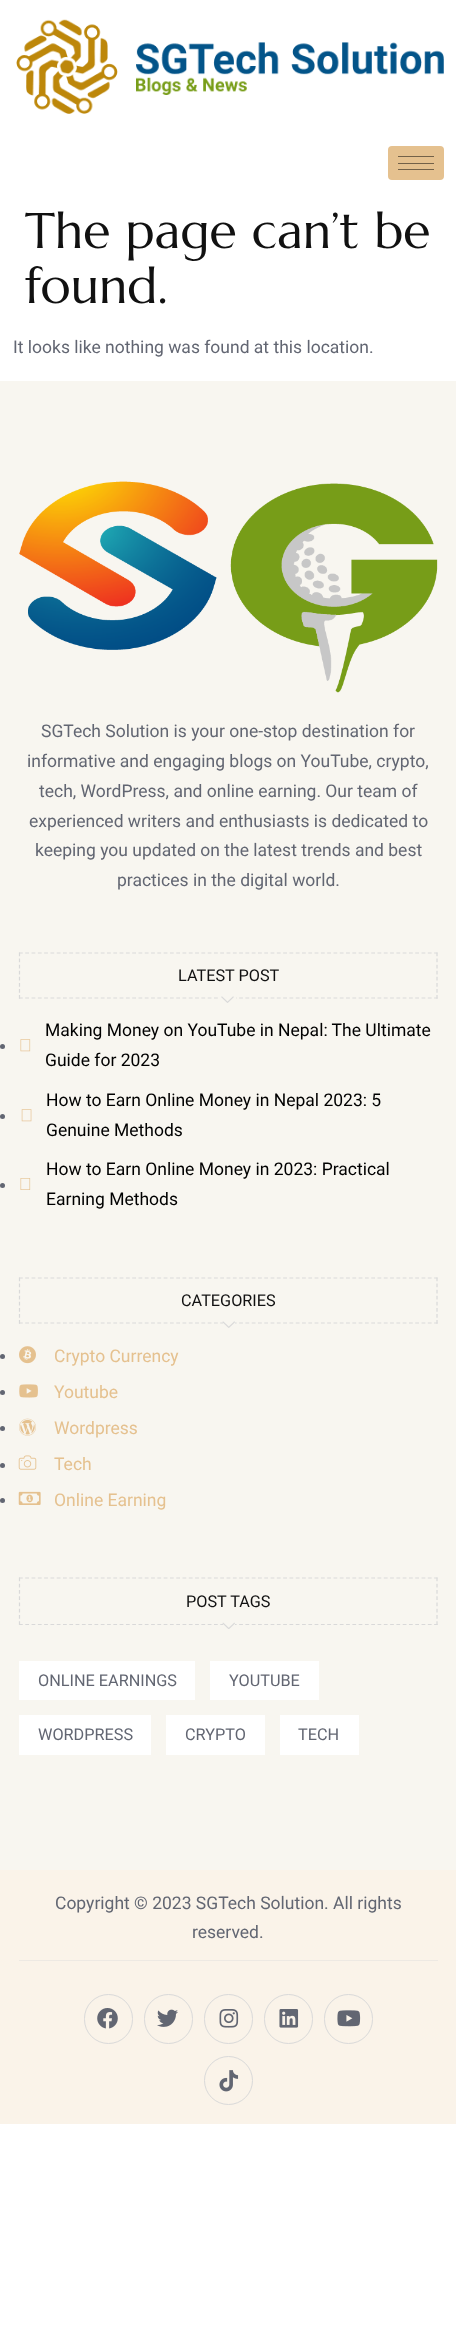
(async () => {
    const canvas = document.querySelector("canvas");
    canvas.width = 456;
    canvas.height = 2329;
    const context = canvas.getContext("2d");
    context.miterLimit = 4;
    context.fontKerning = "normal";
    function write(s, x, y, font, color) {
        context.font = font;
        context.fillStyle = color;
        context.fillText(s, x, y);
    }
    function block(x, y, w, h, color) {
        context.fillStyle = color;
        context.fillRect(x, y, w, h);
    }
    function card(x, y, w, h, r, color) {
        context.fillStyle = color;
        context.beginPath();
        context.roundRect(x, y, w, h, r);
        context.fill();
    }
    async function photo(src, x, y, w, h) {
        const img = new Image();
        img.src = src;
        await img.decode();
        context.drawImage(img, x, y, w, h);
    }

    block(0, 0, 456, 2329, "rgb(255, 255, 255)");
    await photo("media/1.png", 16, 19, 428, 95);
    card(388, 146, 56, 34, 4, "rgb(229, 193, 143)");
    block(398, 156, 36, 1, "rgb(115, 97, 72)");
    block(398, 163, 36, 1, "rgb(115, 97, 72)");
    block(398, 169, 36, 1, "rgb(115, 97, 72)");
    write("The page can’t be", 25, 248, "50px Marcellus", "rgb(17, 17, 17)");
    write("found.", 25, 303, "50px Marcellus", "rgb(17, 17, 17)");
    write("It looks like nothing was found at this location.", 13, 353, "17.5px Roboto", "rgb(98, 102, 114)");
    block(0, 381, 456, 1489, "rgb(248, 246, 240)");
    await photo("media/2.png", 19, 481, 419, 212);
    write("SGTech Solution is your one-stop destination for", 41, 737, "17.5px Roboto", "rgb(98, 102, 114)");
    write("informative and engaging blogs on YouTube, crypto,", 27, 767, "17.5px Roboto", "rgb(98, 102, 114)");
    write("tech, WordPress, and online earning. Our team of", 39, 797, "17.5px Roboto", "rgb(98, 102, 114)");
    write("experienced writers and enthusiasts is dedicated to", 29, 827, "17.5px Roboto", "rgb(98, 102, 114)");
    write("keeping you updated on the latest trends and best", 35, 856, "17.5px Roboto", "rgb(98, 102, 114)");
    write("practices in the digital world.", 117, 886, "17.5px Roboto", "rgb(98, 102, 114)");
    context.beginPath();
    context.moveTo(19, 953);
    context.lineTo(437.5, 953);
    context.strokeStyle = "rgb(217, 217, 217)";
    context.lineWidth = 1.2;
    context.setLineDash([3.75, 2.54]);
    context.stroke();
    context.beginPath();
    context.moveTo(437, 952.5);
    context.lineTo(437, 999);
    context.setLineDash([3.75, 2.33]);
    context.stroke();
    context.beginPath();
    context.moveTo(19, 998);
    context.lineTo(437.5, 998);
    context.setLineDash([3.75, 2.54]);
    context.stroke();
    context.beginPath();
    context.moveTo(19.5, 952.5);
    context.lineTo(19.5, 999);
    context.setLineDash([3.75, 2.33]);
    context.stroke();
    write("LATEST POST", 178, 981, "16.25px Roboto", "rgb(17, 17, 17)");
    block(220, 997, 16, 2, "rgb(248, 246, 240)");
    await photo("media/3.png", 221, 996, 13, 7);
    context.fillStyle = "rgb(98, 102, 114)";
    context.beginPath();
    context.arc(2.5, 1046.5, 2.5, 0, Math.PI * 2);
    context.fill();
    await photo("media/4.png", 20, 1039, 11, 13);
    write("Making Money on YouTube in Nepal: The Ultimate", 45, 1036, "17.5px Roboto", "rgb(0, 0, 0)");
    write("Guide for 2023", 45, 1066, "17.5px Roboto", "rgb(0, 0, 0)");
    context.fillStyle = "rgb(98, 102, 114)";
    context.beginPath();
    context.arc(2.5, 1116.5, 2.5, 0, Math.PI * 2);
    context.fill();
    await photo("media/5.png", 21, 1109, 11, 13);
    write("How to Earn Online Money in Nepal 2023: 5", 46, 1106, "17.5px Roboto", "rgb(0, 0, 0)");
    write("Genuine Methods", 46, 1136, "17.5px Roboto", "rgb(0, 0, 0)");
    context.fillStyle = "rgb(98, 102, 114)";
    context.beginPath();
    context.arc(2.5, 1185.5, 2.5, 0, Math.PI * 2);
    context.fill();
    await photo("media/6.png", 20, 1178, 11, 12);
    write("How to Earn Online Money in 2023: Practical", 46, 1175, "17.5px Roboto", "rgb(0, 0, 0)");
    write("Earning Methods", 46, 1205, "17.5px Roboto", "rgb(0, 0, 0)");
    context.beginPath();
    context.moveTo(19, 1278);
    context.lineTo(437.5, 1278);
    context.setLineDash([3.75, 2.54]);
    context.stroke();
    context.beginPath();
    context.moveTo(437, 1277.5);
    context.lineTo(437, 1324);
    context.setLineDash([3.75, 2.33]);
    context.stroke();
    context.beginPath();
    context.moveTo(19, 1323);
    context.lineTo(437.5, 1323);
    context.setLineDash([3.75, 2.54]);
    context.stroke();
    context.beginPath();
    context.moveTo(19.5, 1277.5);
    context.lineTo(19.5, 1324);
    context.setLineDash([3.75, 2.33]);
    context.stroke();
    write("CATEGORIES", 181, 1306, "16.25px Roboto", "rgb(17, 17, 17)");
    block(223, 1322, 12, 2, "rgb(248, 246, 240)");
    await photo("media/7.png", 222, 1321, 13, 7);
    context.fillStyle = "rgb(98, 102, 114)";
    context.beginPath();
    context.arc(2.5, 1356.5, 2.5, 0, Math.PI * 2);
    context.fill();
    await photo("media/8.png", 19, 1346, 17, 18);
    write("Crypto Currency", 54, 1362, "17.5px Roboto", "rgb(229, 193, 143)");
    context.fillStyle = "rgb(98, 102, 114)";
    context.beginPath();
    context.arc(2.5, 1392.5, 2.5, 0, Math.PI * 2);
    context.fill();
    await photo("media/9.png", 19, 1384, 19, 14);
    write("Youtube", 54, 1398, "17.5px Roboto", "rgb(229, 193, 143)");
    context.fillStyle = "rgb(98, 102, 114)";
    context.beginPath();
    context.arc(2.5, 1428.5, 2.5, 0, Math.PI * 2);
    context.fill();
    await photo("media/10.png", 19, 1418, 17, 18);
    write("Wordpress", 54, 1434, "17.5px Roboto", "rgb(229, 193, 143)");
    context.fillStyle = "rgb(98, 102, 114)";
    context.beginPath();
    context.arc(2.5, 1465.5, 2.5, 0, Math.PI * 2);
    context.fill();
    await photo("media/11.png", 18, 1455, 19, 15);
    write("Tech", 54, 1470, "17.5px Roboto", "rgb(229, 193, 143)");
    context.fillStyle = "rgb(98, 102, 114)";
    context.beginPath();
    context.arc(2.5, 1500.5, 2.5, 0, Math.PI * 2);
    context.fill();
    await photo("media/12.png", 18, 1491, 23, 14);
    write("Online Earning", 54, 1506, "17.5px Roboto", "rgb(229, 193, 143)");
    context.beginPath();
    context.moveTo(19, 1578);
    context.lineTo(437.5, 1578);
    context.setLineDash([3.75, 2.54]);
    context.stroke();
    context.beginPath();
    context.moveTo(437, 1577.5);
    context.lineTo(437, 1625);
    context.setLineDash([3.75, 2.5]);
    context.stroke();
    context.beginPath();
    context.moveTo(19, 1624.5);
    context.lineTo(437.5, 1624.5);
    context.setLineDash([3.75, 2.54]);
    context.stroke();
    context.beginPath();
    context.moveTo(19.5, 1577.5);
    context.lineTo(19.5, 1625);
    context.setLineDash([3.75, 2.5]);
    context.stroke();
    write("POST TAGS", 186, 1607, "16.25px Roboto", "rgb(17, 17, 17)");
    block(223, 1623, 12, 3, "rgb(248, 246, 240)");
    await photo("media/13.png", 222, 1622, 13, 7);
    block(19, 1661, 176, 39, "rgb(255, 255, 255)");
    write("ONLINE EARNINGS", 38, 1686, "16.25px Roboto", "rgb(98, 102, 114)");
    block(210, 1661, 109, 39, "rgb(255, 255, 255)");
    write("YOUTUBE", 229, 1686, "16.25px Roboto", "rgb(98, 102, 114)");
    block(19, 1715, 132, 40, "rgb(255, 255, 255)");
    write("WORDPRESS", 38, 1740, "16.25px Roboto", "rgb(98, 102, 114)");
    block(166, 1715, 99, 40, "rgb(255, 255, 255)");
    write("CRYPTO", 185, 1740, "16.25px Roboto", "rgb(98, 102, 114)");
    block(280, 1715, 79, 40, "rgb(255, 255, 255)");
    write("TECH", 298, 1740, "16.25px Roboto", "rgb(98, 102, 114)");
    block(0, 1870, 456, 254, "rgb(250, 243, 233)");
    block(19, 1960, 419, 1, "rgb(237, 233, 227)");
    write("Copyright © 2023 SGTech Solution. All rights", 55, 1909, "17.5px Roboto", "rgb(98, 102, 114)");
    write("reserved.", 192, 1938, "17.5px Roboto", "rgb(98, 102, 114)");
    context.beginPath();
    context.roundRect(84.5, 1994.5, 48, 49, 24);
    context.lineWidth = 1;
    context.setLineDash([]);
    context.stroke();
    await photo("media/14.png", 97, 2008, 21, 21);
    context.beginPath();
    context.roundRect(144.5, 1994.5, 48, 49, 24);
    context.stroke();
    await photo("media/15.png", 157, 2009, 21, 18);
    context.beginPath();
    context.roundRect(204.5, 1994.5, 48, 49, 24);
    context.stroke();
    await photo("media/16.png", 219, 2009, 20, 19);
    context.beginPath();
    context.roundRect(264.5, 1994.5, 48, 49, 24);
    context.stroke();
    await photo("media/17.png", 279, 2009, 20, 19);
    context.beginPath();
    context.roundRect(324.5, 1994.5, 48, 49, 24);
    context.stroke();
    await photo("media/18.png", 337, 2010, 24, 17);
    context.beginPath();
    context.arc(228.5, 2080.5, 24, 0, Math.PI * 2);
    context.stroke();
    await photo("media/19.png", 219, 2070, 20, 22);
})();
